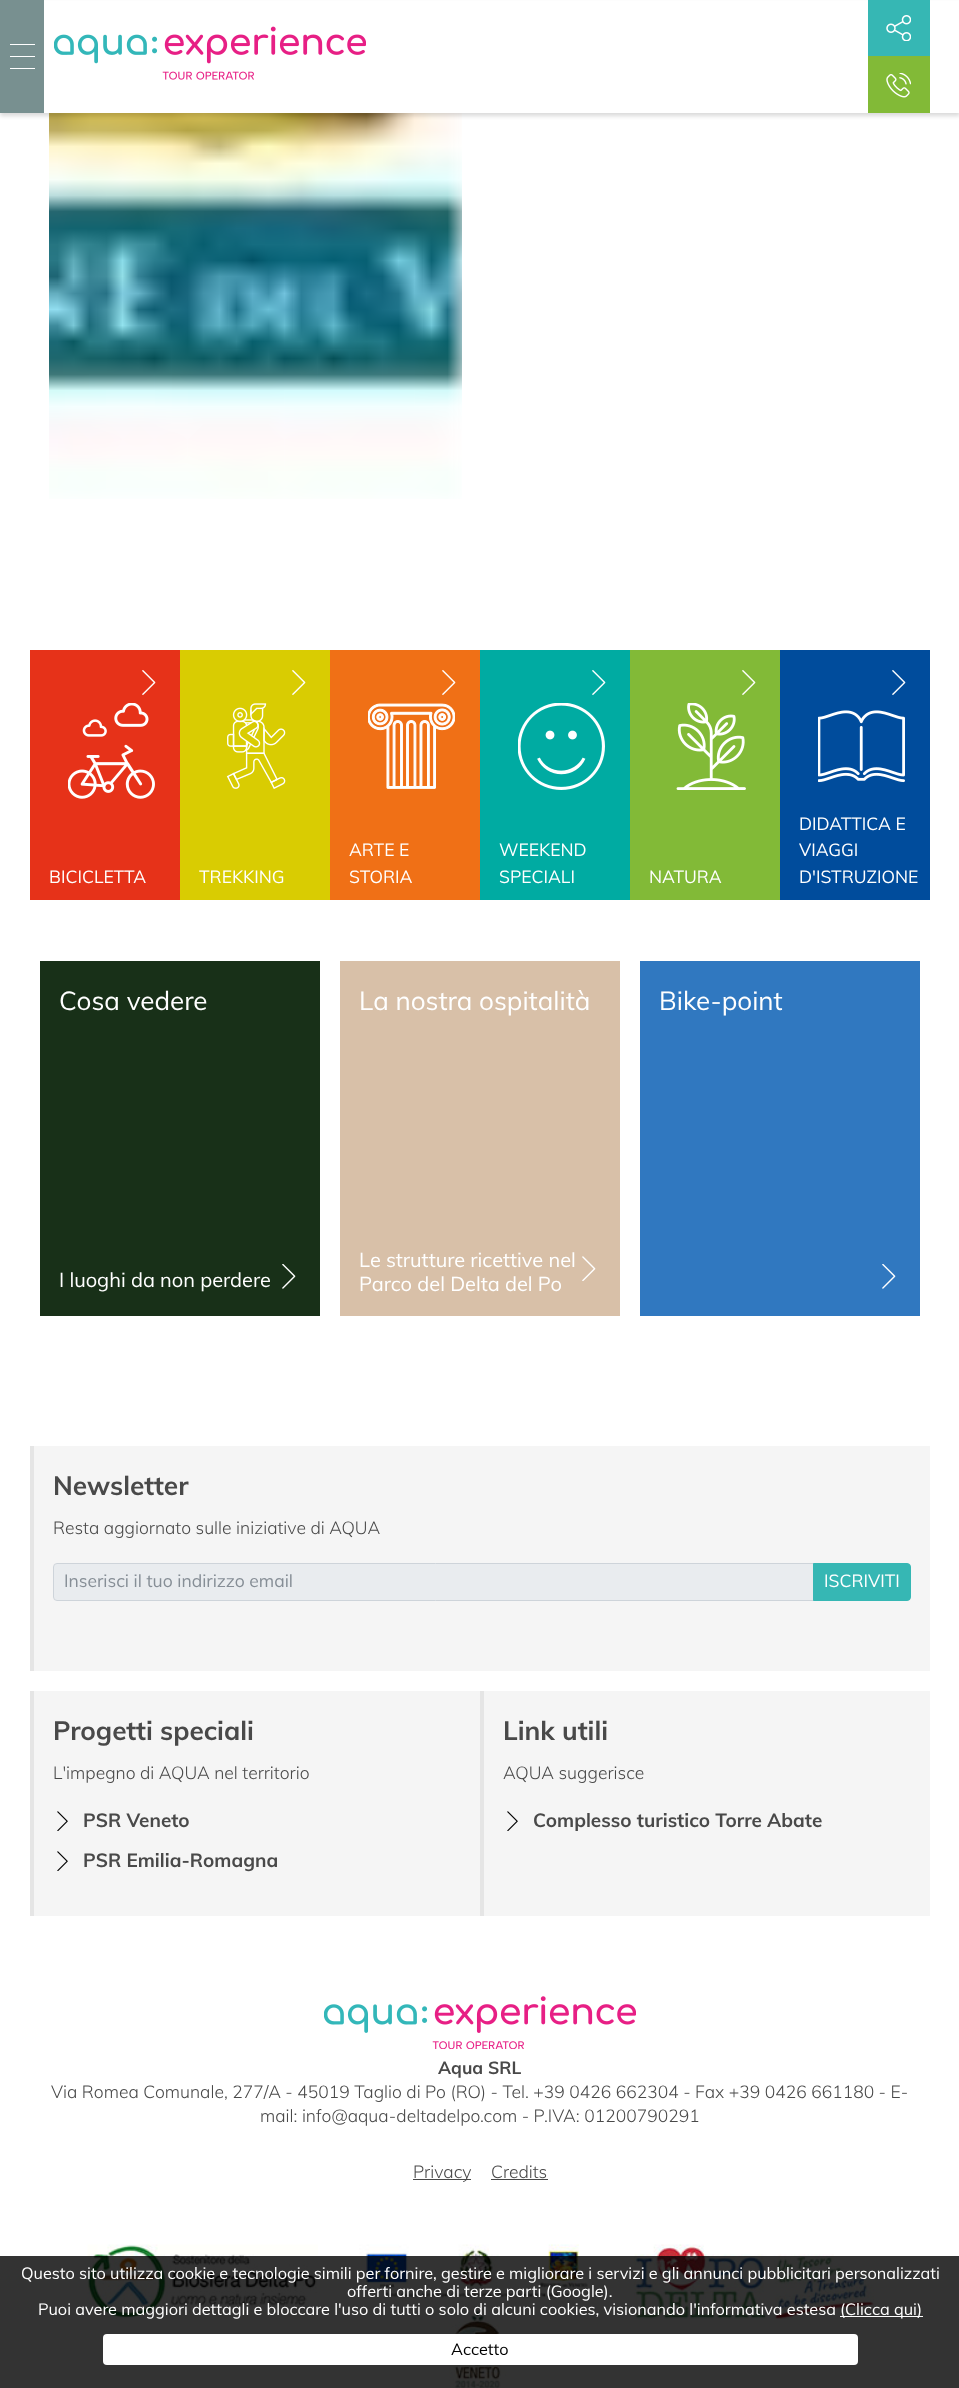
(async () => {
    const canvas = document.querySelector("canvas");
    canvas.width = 959;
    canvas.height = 2388;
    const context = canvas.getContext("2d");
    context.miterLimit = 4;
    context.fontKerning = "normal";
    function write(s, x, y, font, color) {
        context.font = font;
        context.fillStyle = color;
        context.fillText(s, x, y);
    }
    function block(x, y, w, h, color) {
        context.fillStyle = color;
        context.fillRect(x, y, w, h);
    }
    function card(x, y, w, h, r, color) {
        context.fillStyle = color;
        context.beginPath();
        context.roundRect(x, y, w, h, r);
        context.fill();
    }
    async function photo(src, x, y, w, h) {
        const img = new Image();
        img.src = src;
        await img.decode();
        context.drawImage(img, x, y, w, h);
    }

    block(0, 0, 959, 2388, "rgb(255, 255, 255)");
    await photo("media/4.png", 49, 113, 413, 386);
    context.fillStyle = "rgba(0, 0, 0, 0.15)";
    context.filter = "blur(2px)";
    context.beginPath();
    context.rect(0, 4, 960, 112);
    context.fill();
    context.filter = "none";
    block(44, 1, 915, 112, "rgb(255, 255, 255)");
    block(0, 0, 44, 113, "rgb(120, 144, 144)");
    block(10, 44, 25, 1, "rgb(255, 255, 255)");
    block(10, 56, 25, 1, "rgb(255, 255, 255)");
    block(10, 68, 25, 1, "rgb(255, 255, 255)");
    await photo("media/1.png", 54, 26, 312, 54);
    block(868, 0, 62, 56, "rgb(54, 183, 180)");
    await photo("media/2.png", 886, 15, 25, 26);
    block(868, 56, 62, 57, "rgb(130, 186, 55)");
    await photo("media/3.png", 886, 73, 25, 25);
    block(30, 650, 150, 250, "rgb(230, 50, 25)");
    await photo("media/5.png", 142, 670, 14, 25);
    await photo("media/6.png", 68, 703, 87, 96);
    write("BICICLETTA", 49, 883, "17.5px Muli", "rgb(255, 255, 255)");
    block(180, 650, 150, 250, "rgb(217, 204, 2)");
    await photo("media/7.png", 292, 670, 14, 25);
    await photo("media/8.png", 226, 703, 60, 86);
    write("TREKKING", 199, 883, "17.5px Muli", "rgb(255, 255, 255)");
    block(330, 650, 150, 250, "rgb(240, 112, 22)");
    await photo("media/9.png", 442, 670, 14, 25);
    await photo("media/10.png", 368, 703, 87, 86);
    write("ARTE E", 349, 856, "17.5px Muli", "rgb(255, 255, 255)");
    write("STORIA", 349, 883, "17.5px Muli", "rgb(255, 255, 255)");
    block(480, 650, 150, 250, "rgb(0, 171, 162)");
    await photo("media/11.png", 592, 670, 14, 25);
    await photo("media/12.png", 518, 703, 87, 87);
    write("WEEKEND", 499, 856, "17.5px Muli", "rgb(255, 255, 255)");
    write("SPECIALI", 499, 883, "17.5px Muli", "rgb(255, 255, 255)");
    block(630, 650, 150, 250, "rgb(130, 186, 55)");
    await photo("media/13.png", 742, 670, 14, 25);
    await photo("media/14.png", 676, 703, 70, 87);
    write("NATURA", 649, 883, "17.5px Muli", "rgb(255, 255, 255)");
    block(780, 650, 150, 250, "rgb(0, 76, 156)");
    await photo("media/15.png", 892, 670, 14, 25);
    await photo("media/16.png", 818, 710, 87, 73);
    write("DIDATTICA E", 799, 830, "17.5px Muli", "rgb(255, 255, 255)");
    write("VIAGGI", 799, 856, "17.5px Muli", "rgb(255, 255, 255)");
    write("D'ISTRUZIONE", 799, 883, "17.5px Muli", "rgb(255, 255, 255)");
    block(40, 961, 280, 355, "rgb(24, 48, 24)");
    write("Cosa vedere", 59, 1010, "26px Muli", "rgb(255, 255, 255)");
    write("I luoghi da non perdere", 59, 1287, "20px Muli", "rgb(255, 255, 255)");
    await photo("media/17.png", 282, 1264, 14, 25);
    block(340, 961, 280, 355, "rgb(216, 192, 168)");
    write("La nostra ospitalità", 359, 1010, "26px Muli", "rgb(255, 255, 255)");
    write("Le strutture ricettive nel", 359, 1267, "20px Muli", "rgb(255, 255, 255)");
    write("Parco del Delta del Po", 359, 1291, "20px Muli", "rgb(255, 255, 255)");
    await photo("media/18.png", 582, 1256, 14, 25);
    block(640, 961, 280, 355, "rgb(48, 120, 192)");
    write("Bike-point", 659, 1010, "26px Muli", "rgb(255, 255, 255)");
    await photo("media/19.png", 882, 1264, 14, 25);
    block(34, 1446, 896, 225, "rgb(245, 245, 245)");
    block(30, 1446, 4, 225, "rgb(229, 229, 229)");
    write("Newsletter", 53, 1495, "bold 26.25px Muli", "rgb(73, 73, 73)");
    write("Resta aggiornato sulle iniziative di AQUA", 53, 1534, "300 17.5px Muli", "rgb(73, 73, 73)");
    context.fillStyle = "rgb(233, 236, 239)";
    context.beginPath();
    context.roundRect(54, 1564, 759, 36, [2.5, 0, 0, 2.5]);
    context.fill();
    context.beginPath();
    context.roundRect(53.5, 1563.5, 760, 37, [3.5, 0, 0, 3.5]);
    context.strokeStyle = "rgb(206, 212, 218)";
    context.stroke();
    write("Inserisci il tuo indirizzo email", 64, 1587, "17.5px Muli", "rgb(134, 142, 150)");
    context.fillStyle = "rgb(54, 183, 180)";
    context.beginPath();
    context.roundRect(813.5, 1563.5, 97, 37, [0, 3.5, 3.5, 0]);
    context.fill();
    context.strokeStyle = "rgb(54, 183, 180)";
    context.stroke();
    write("ISCRIVITI", 824, 1587, "17.5px Muli", "rgb(255, 255, 255)");
    block(34, 1691, 446, 225, "rgb(245, 245, 245)");
    block(30, 1691, 4, 225, "rgb(229, 229, 229)");
    write("Progetti speciali", 53, 1740, "bold 26.25px Muli", "rgb(73, 73, 73)");
    write("L'impegno di AQUA nel territorio", 53, 1779, "300 17.5px Muli", "rgb(73, 73, 73)");
    await photo("media/20.png", 57, 1811, 11, 20);
    write("PSR Veneto", 83, 1827, "bold 19px Muli", "rgb(73, 73, 73)");
    await photo("media/20.png", 57, 1851, 11, 20);
    write("PSR Emilia-Romagna", 83, 1867, "bold 19px Muli", "rgb(73, 73, 73)");
    block(484, 1691, 446, 225, "rgb(245, 245, 245)");
    block(480, 1691, 4, 225, "rgb(229, 229, 229)");
    write("Link utili", 503, 1740, "bold 26.25px Muli", "rgb(73, 73, 73)");
    write("AQUA suggerisce", 503, 1779, "300 17.5px Muli", "rgb(73, 73, 73)");
    await photo("media/20.png", 507, 1811, 11, 20);
    write("Complesso turistico Torre Abate", 533, 1827, "bold 19px Muli", "rgb(73, 73, 73)");
    await photo("media/21.png", 324, 1996, 312, 53);
    write("Aqua SRL", 438, 2074, "bold 17.5px Muli", "rgb(73, 73, 73)");
    write("Via Romea Comunale, 277/A - 45019 Taglio di Po (RO) - Tel. +39 0426 662304 - Fax +39 0426 661180 - E-", 51, 2098, "300 17.5px Muli", "rgb(73, 73, 73)");
    write("mail: info@aqua-deltadelpo.com - P.IVA: 01200790291", 260, 2122, "300 17.5px Muli", "rgb(73, 73, 73)");
    block(413, 2179, 58, 1, "rgb(73, 73, 73)");
    write("Privacy", 413, 2178, "300 17.5px Muli", "rgb(73, 73, 73)");
    write("Credits", 491, 2178, "300 17.5px Muli", "rgb(73, 73, 73)");
    block(491, 2179, 57, 1, "rgb(73, 73, 73)");
    await photo("media/22.png", 87, 2244, 231, 76);
    await photo("media/23.png", 359, 2244, 230, 144);
    await photo("media/24.png", 633, 2244, 241, 76);
    block(0, 2256, 959, 132, "rgba(0, 0, 0, 0.8)");
    write("Questo sito utilizza cookie e tecnologie simili per fornire, gestire e migliorare i servizi e gli annunci pubblicitari personalizzati", 21, 2279, "16.25px Muli", "rgb(255, 255, 255)");
    write("offerti anche di terze parti (Google).", 347, 2297, "16.25px Muli", "rgb(255, 255, 255)");
    write("Puoi avere maggiori dettagli e bloccare l'uso di tutti o solo di alcuni cookies, visionando l'informativa estesa", 38, 2315, "16.25px Muli", "rgb(255, 255, 255)");
    block(840, 2316, 83, 1, "rgb(255, 255, 255)");
    write("(Clicca qui)", 840, 2315, "16.25px Muli", "rgb(255, 255, 255)");
    card(103, 2334, 755, 31, 4, "rgb(255, 255, 255)");
    write("Accetto", 451, 2355, "16.25px Muli", "rgb(0, 0, 0)");
})();
